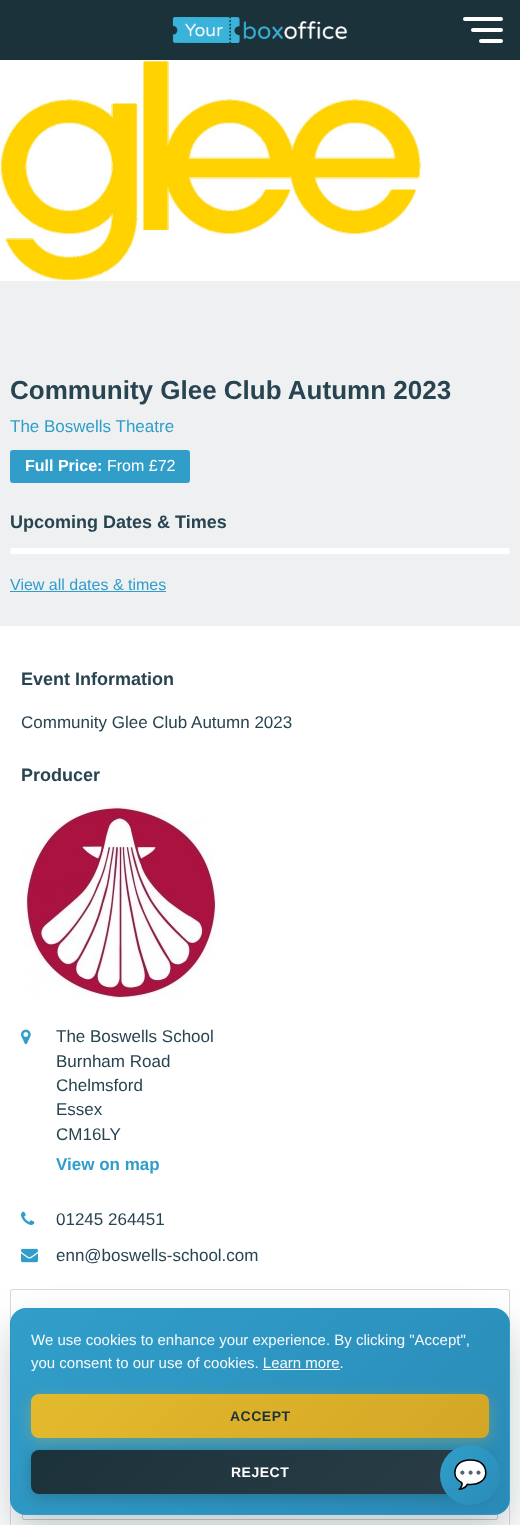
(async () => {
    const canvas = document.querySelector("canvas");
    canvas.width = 520;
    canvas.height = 1525;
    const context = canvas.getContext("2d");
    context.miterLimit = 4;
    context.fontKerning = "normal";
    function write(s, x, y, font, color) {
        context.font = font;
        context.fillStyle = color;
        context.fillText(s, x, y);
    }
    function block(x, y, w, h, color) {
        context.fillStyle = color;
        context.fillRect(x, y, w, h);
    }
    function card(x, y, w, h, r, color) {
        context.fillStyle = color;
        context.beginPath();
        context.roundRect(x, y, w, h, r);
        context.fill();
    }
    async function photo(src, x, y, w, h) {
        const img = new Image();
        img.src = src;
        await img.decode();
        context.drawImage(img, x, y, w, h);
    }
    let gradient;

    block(0, 0, 520, 1525, "rgb(255, 255, 255)");
    block(0, 0, 520, 60, "rgb(28, 50, 58)");
    await photo("media/1.png", 172, 17, 176, 26);
    card(463, 17, 40, 4, 2, "rgb(255, 255, 255)");
    card(471, 28, 32, 4, 2, "rgb(255, 255, 255)");
    card(479, 39, 24, 4, 2, "rgb(255, 255, 255)");
    block(0, 281, 520, 345, "rgb(238, 240, 241)");
    await photo("media/2.png", 0, 60, 520, 221);
    write("Community Glee Club Autumn 2023", 10, 399, "bold 26px Liberation Sans", "rgb(40, 68, 80)");
    write("The Boswells Theatre", 10, 432, "17px Liberation Sans", "rgb(49, 158, 202)");
    card(10, 450, 180, 33, 3, "rgb(49, 158, 202)");
    write("Full Price:", 25, 471, "bold 16px Liberation Sans", "rgb(255, 255, 255)");
    write("From £72", 107, 471, "16px Liberation Sans", "rgb(255, 255, 255)");
    write("Upcoming Dates & Times", 10, 528, "bold 18px Liberation Sans", "rgb(40, 68, 80)");
    card(10, 548, 500, 6, 3, "rgb(255, 255, 255)");
    write("View all dates & times", 10, 590, "16px Liberation Sans", "rgb(49, 158, 202)");
    block(10, 591, 156, 1, "rgb(49, 158, 202)");
    write("Event Information", 21, 685, "bold 18px Liberation Sans", "rgb(40, 68, 80)");
    write("Community Glee Club Autumn 2023", 21, 728, "17px Liberation Sans", "rgb(40, 68, 80)");
    write("Producer", 21, 781, "bold 18px Liberation Sans", "rgb(40, 68, 80)");
    await photo("media/3.png", 21, 805, 200, 193);
    await photo("media/4.png", 21, 1029, 10, 16);
    write("The Boswells School", 56, 1042, "17px Liberation Sans", "rgb(40, 68, 80)");
    write("Burnham Road", 56, 1067, "17px Liberation Sans", "rgb(40, 68, 80)");
    write("Chelmsford", 56, 1091, "17px Liberation Sans", "rgb(40, 68, 80)");
    write("Essex", 56, 1115, "17px Liberation Sans", "rgb(40, 68, 80)");
    write("CM16LY", 56, 1140, "17px Liberation Sans", "rgb(40, 68, 80)");
    write("View on map", 56, 1170, "bold 17px Liberation Sans", "rgb(49, 158, 202)");
    await photo("media/5.png", 21, 1211, 14, 14);
    write("01245 264451", 56, 1225, "17px Liberation Sans", "rgb(40, 68, 80)");
    await photo("media/6.png", 21, 1248, 17, 15);
    write("enn@boswells-school.com", 56, 1261, "17px Liberation Sans", "rgb(40, 68, 80)");
    context.beginPath();
    context.roundRect(10.5, 1289.5, 499, 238, 1.5);
    context.strokeStyle = "rgb(218, 218, 218)";
    context.stroke();
    context.beginPath();
    context.roundRect(22.5, 1474.5, 475, 45, 1.5);
    context.strokeStyle = "rgb(204, 204, 204)";
    context.stroke();
    context.fillStyle = "rgba(28, 50, 58, 0.25)";
    context.filter = "blur(20px)";
    context.beginPath();
    context.roundRect(10, 1328, 500, 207, 16);
    context.fill();
    context.filter = "none";
    context.save();
    context.beginPath();
    context.roundRect(10, 1308, 500, 207, 16);
    context.clip();
    gradient = context.createLinearGradient(84, 1031, 436, 1382);
    gradient.addColorStop(0, "rgb(49, 158, 202)");
    gradient.addColorStop(1, "rgb(42, 139, 184)");
    context.fillStyle = gradient;
    context.fillRect(20, 1308, 480, 1);
    gradient = context.createLinearGradient(-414, 1236, -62, 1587);
    gradient.addColorStop(0, "rgb(49, 158, 202)");
    gradient.addColorStop(1, "rgb(42, 139, 184)");
    context.fillStyle = gradient;
    context.fillRect(10, 1318, 1, 187);
    gradient = context.createLinearGradient(84, 1236, 436, 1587);
    gradient.addColorStop(0, "rgb(49, 158, 202)");
    gradient.addColorStop(1, "rgb(42, 139, 184)");
    context.fillStyle = gradient;
    context.fillRect(11, 1309, 498, 205);
    context.restore();
    gradient = context.createLinearGradient(84, 1236, 436, 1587);
    gradient.addColorStop(0, "rgb(245, 250, 252)");
    gradient.addColorStop(1, "rgb(244, 249, 251)");
    context.fillStyle = gradient;
    context.fillRect(263, 1369, 77, 1);
    context.save();
    context.beginPath();
    context.roundRect(10, 1308, 500, 207, 16);
    context.clip();
    gradient = context.createLinearGradient(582, 1236, 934, 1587);
    gradient.addColorStop(0, "rgb(49, 158, 202)");
    gradient.addColorStop(1, "rgb(42, 139, 184)");
    context.fillStyle = gradient;
    context.fillRect(509, 1318, 1, 187);
    gradient = context.createLinearGradient(84, 1441, 436, 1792);
    gradient.addColorStop(0, "rgb(49, 158, 202)");
    gradient.addColorStop(1, "rgb(42, 139, 184)");
    context.fillStyle = gradient;
    context.fillRect(20, 1514, 480, 1);
    context.restore();
    context.beginPath();
    context.roundRect(10.5, 1308.5, 499, 206, 15.5);
    context.strokeStyle = "rgba(49, 158, 202, 0.2)";
    context.stroke();
    write("We use cookies to enhance your experience. By clicking \"Accept\",", 31, 1345, "15px Liberation Sans", "rgb(245, 250, 252)");
    write("you consent to our use of cookies. Learn more.", 31, 1368, "15px Liberation Sans", "rgb(245, 250, 252)");
    context.fillStyle = "rgba(227, 186, 45, 0.3)";
    context.filter = "blur(7.5px)";
    context.beginPath();
    context.roundRect(31, 1398, 458, 44, 8);
    context.fill();
    context.filter = "none";
    gradient = context.createLinearGradient(135, 1291, 386, 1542);
    gradient.addColorStop(0, "rgb(227, 186, 45)");
    gradient.addColorStop(1, "rgb(212, 166, 38)");
    context.fillStyle = gradient;
    context.beginPath();
    context.roundRect(31, 1394, 458, 44, 8);
    context.fill();
    context.letterSpacing = "0.5px";
    write("ACCEPT", 230, 1421, "bold 14px Liberation Sans", "rgb(28, 50, 58)");
    context.fillStyle = "rgba(28, 50, 58, 0.3)";
    context.filter = "blur(7.5px)";
    context.beginPath();
    context.roundRect(31, 1454, 458, 44, 8);
    context.fill();
    context.filter = "none";
    gradient = context.createLinearGradient(135, 1347, 386, 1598);
    gradient.addColorStop(0, "rgb(28, 50, 58)");
    gradient.addColorStop(1, "rgb(42, 61, 71)");
    context.fillStyle = gradient;
    context.beginPath();
    context.roundRect(31, 1450, 458, 44, 8);
    context.fill();
    write("REJECT", 231, 1477, "bold 14px Liberation Sans", "rgb(255, 255, 255)");
    gradient = context.createLinearGradient(440, 1445, 500, 1505);
    gradient.addColorStop(0, "rgb(49, 158, 202)");
    gradient.addColorStop(1, "rgb(42, 139, 184)");
    context.fillStyle = gradient;
    context.beginPath();
    context.arc(470, 1475, 30, 0, Math.PI * 2);
    context.fill();
    context.letterSpacing = "0px";
    write("💬", 453, 1484, "28px Noto Color Emoji", "rgb(255, 255, 255)");
})();
